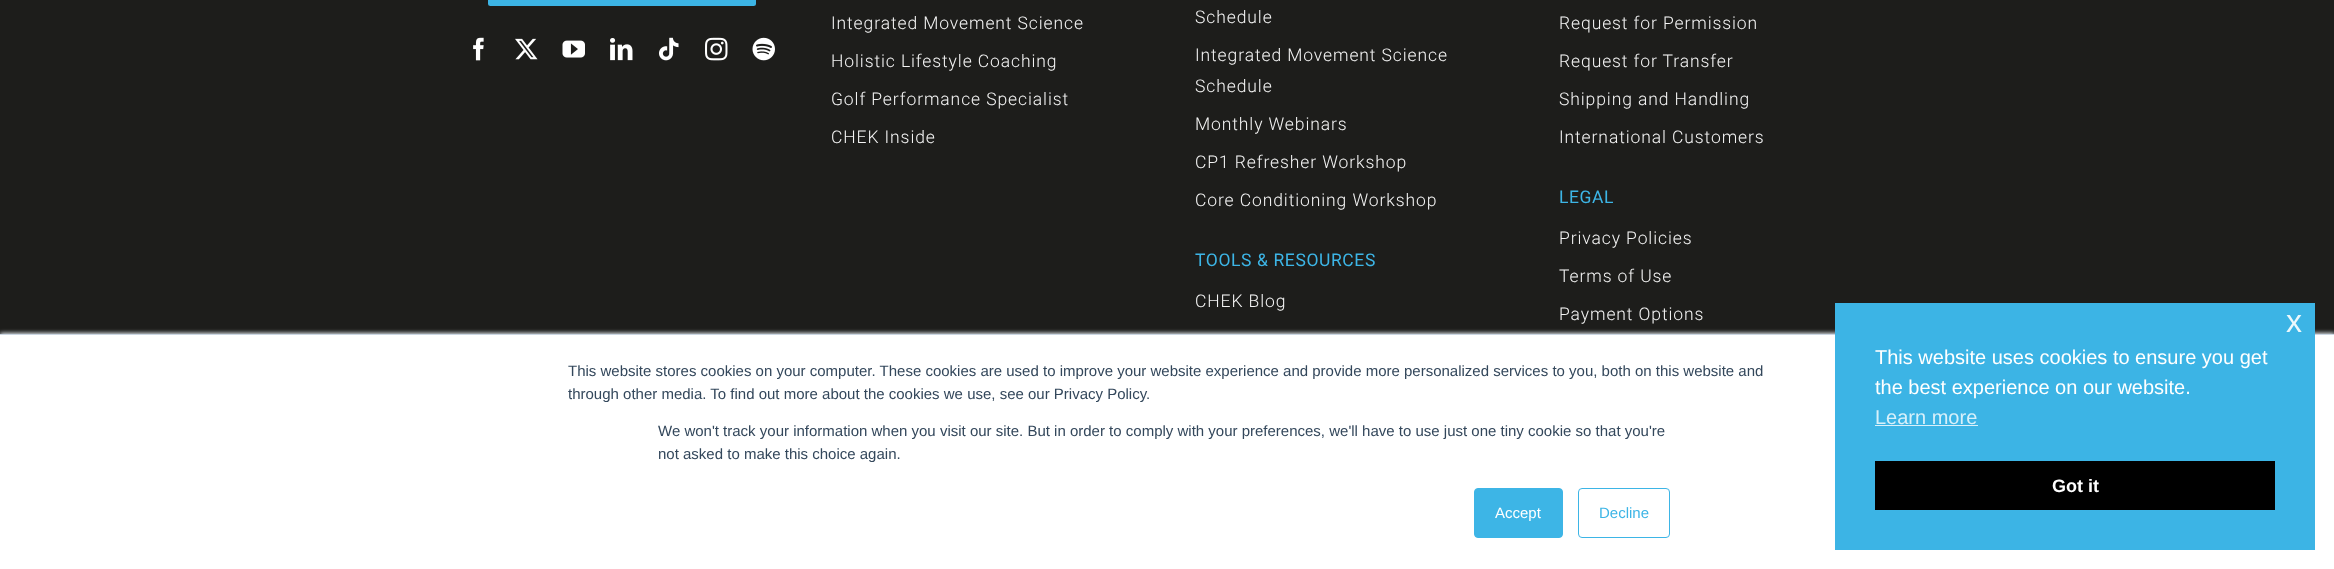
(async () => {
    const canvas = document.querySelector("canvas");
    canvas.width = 2334;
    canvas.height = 569;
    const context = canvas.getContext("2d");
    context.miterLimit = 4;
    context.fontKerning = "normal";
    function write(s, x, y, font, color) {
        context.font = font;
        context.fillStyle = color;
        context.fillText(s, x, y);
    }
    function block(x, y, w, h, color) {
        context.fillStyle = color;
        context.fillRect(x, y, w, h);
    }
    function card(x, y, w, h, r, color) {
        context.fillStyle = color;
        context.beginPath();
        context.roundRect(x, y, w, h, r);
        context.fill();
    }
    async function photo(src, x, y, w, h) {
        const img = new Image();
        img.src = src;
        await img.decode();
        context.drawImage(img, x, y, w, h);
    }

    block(0, 0, 2334, 569, "rgb(29, 29, 27)");
    card(488, -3, 268, 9, 2.5, "rgb(60, 180, 229)");
    await photo("media/1.png", 473, 37, 11, 24);
    await photo("media/2.png", 515, 38, 23, 22);
    await photo("media/3.png", 562, 40, 23, 18);
    await photo("media/4.png", 610, 38, 23, 23);
    await photo("media/5.png", 659, 37, 20, 24);
    await photo("media/6.png", 705, 37, 23, 24);
    await photo("media/7.png", 752, 37, 23, 24);
    context.letterSpacing = "0.9px";
    write("Integrated Movement Science", 831, 29, "300 17.5px Roboto", "rgb(244, 244, 244)");
    write("Holistic Lifestyle Coaching", 831, 67, "300 17.5px Roboto", "rgb(244, 244, 244)");
    write("Golf Performance Specialist", 831, 105, "300 17.5px Roboto", "rgb(244, 244, 244)");
    write("CHEK Inside", 831, 143, "300 17.5px Roboto", "rgb(244, 244, 244)");
    write("Schedule", 1195, 23, "300 17.5px Roboto", "rgb(244, 244, 244)");
    write("Integrated Movement Science", 1195, 61, "300 17.5px Roboto", "rgb(244, 244, 244)");
    write("Schedule", 1195, 92, "300 17.5px Roboto", "rgb(244, 244, 244)");
    write("Monthly Webinars", 1195, 130, "300 17.5px Roboto", "rgb(244, 244, 244)");
    write("CP1 Refresher Workshop", 1195, 168, "300 17.5px Roboto", "rgb(244, 244, 244)");
    write("Core Conditioning Workshop", 1195, 206, "300 17.5px Roboto", "rgb(244, 244, 244)");
    context.letterSpacing = "0.6px";
    write("TOOLS & RESOURCES", 1195, 266, "17.5px Roboto", "rgb(61, 181, 230)");
    context.letterSpacing = "0.9px";
    write("CHEK Blog", 1195, 307, "300 17.5px Roboto", "rgb(244, 244, 244)");
    write("Request for Permission", 1559, 29, "300 17.5px Roboto", "rgb(244, 244, 244)");
    write("Request for Transfer", 1559, 67, "300 17.5px Roboto", "rgb(244, 244, 244)");
    write("Shipping and Handling", 1559, 105, "300 17.5px Roboto", "rgb(244, 244, 244)");
    write("International Customers", 1559, 143, "300 17.5px Roboto", "rgb(244, 244, 244)");
    context.letterSpacing = "0.6px";
    write("LEGAL", 1559, 203, "17.5px Roboto", "rgb(61, 181, 230)");
    context.letterSpacing = "0.9px";
    write("Privacy Policies", 1559, 244, "300 17.5px Roboto", "rgb(244, 244, 244)");
    write("Terms of Use", 1559, 282, "300 17.5px Roboto", "rgb(244, 244, 244)");
    write("Payment Options", 1559, 320, "300 17.5px Roboto", "rgb(244, 244, 244)");
    context.fillStyle = "rgb(234, 240, 246)";
    context.filter = "blur(2px)";
    context.beginPath();
    context.rect(0, 333, 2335, 236);
    context.fill();
    context.filter = "none";
    block(0, 335, 2334, 234, "rgb(255, 255, 255)");
    block(0, 334, 2334, 1, "rgb(203, 214, 226)");
    context.letterSpacing = "0px";
    write("This website stores cookies on your computer. These cookies are used to improve your website experience and provide more personalized services to you, both on this website and", 568, 376, "15px Liberation Sans", "rgb(51, 71, 91)");
    write("through other media. To find out more about the cookies we use, see our Privacy Policy.", 568, 399, "15px Liberation Sans", "rgb(51, 71, 91)");
    write("We won't track your information when you visit our site. But in order to comply with your preferences, we'll have to use just one tiny cookie so that you're", 658, 436, "15px Liberation Sans", "rgb(51, 71, 91)");
    write("not asked to make this choice again.", 658, 459, "15px Liberation Sans", "rgb(51, 71, 91)");
    context.fillStyle = "rgb(61, 181, 230)";
    context.beginPath();
    context.roundRect(1474.5, 488.5, 88, 49, 3.5);
    context.fill();
    context.strokeStyle = "rgb(61, 181, 230)";
    context.stroke();
    write("Accept", 1495, 518, "15px Liberation Sans", "rgb(255, 255, 255)");
    context.beginPath();
    context.roundRect(1578.5, 488.5, 91, 49, 3.5);
    context.stroke();
    write("Decline", 1599, 518, "15px Liberation Sans", "rgb(61, 181, 230)");
    block(1835, 303, 480, 247, "rgb(60, 180, 229)");
    write("x", 2286, 332, "32px Liberation Sans", "rgb(236, 248, 252)");
    write("This website uses cookies to ensure you get", 1875, 364, "20px Liberation Sans", "rgb(255, 255, 255)");
    write("the best experience on our website.", 1875, 394, "20px Liberation Sans", "rgb(255, 255, 255)");
    write("Learn more", 1875, 424, "20px Liberation Sans", "rgb(216, 240, 250)");
    block(1875, 425, 103, 1, "rgb(216, 240, 250)");
    block(1875, 461, 400, 49, "rgb(0, 0, 0)");
    write("Got it", 2052, 492, "bold 18px Liberation Sans", "rgb(255, 255, 255)");
})();
